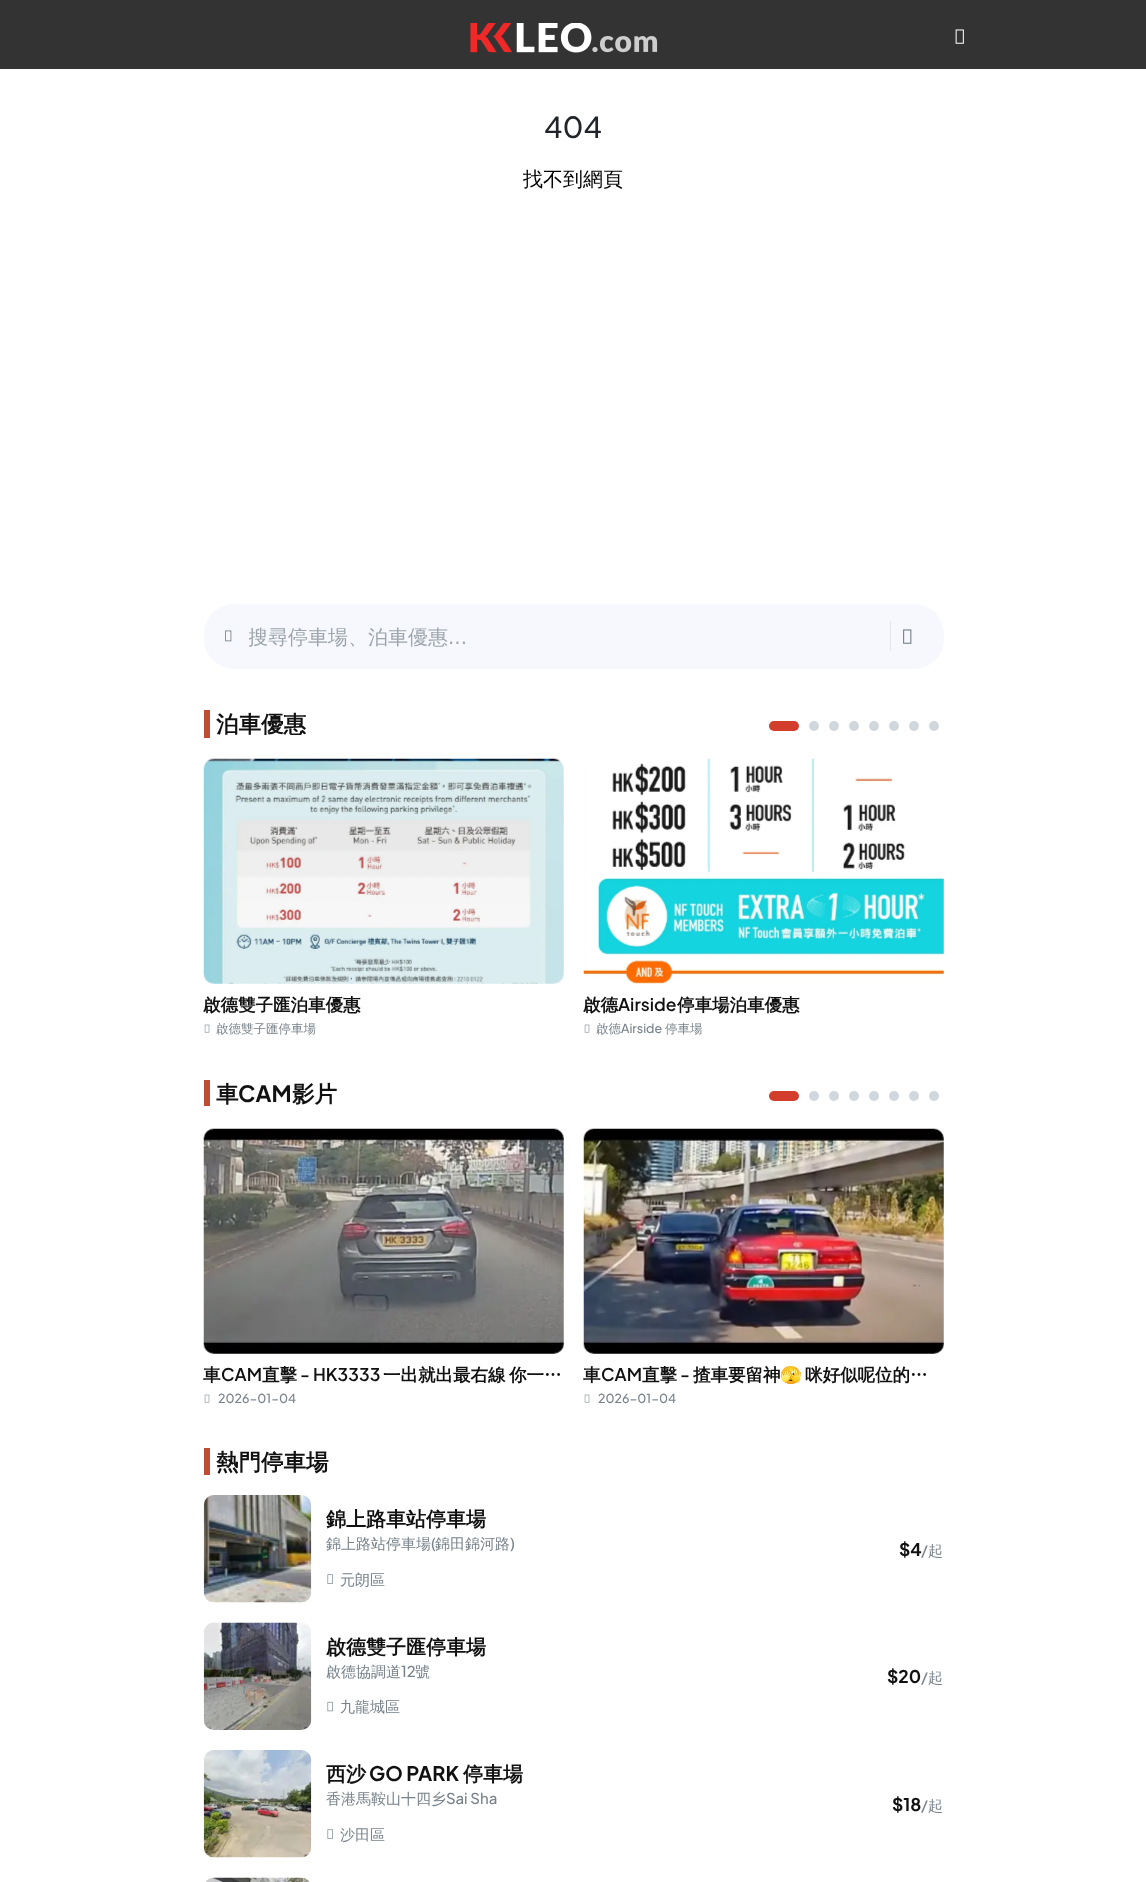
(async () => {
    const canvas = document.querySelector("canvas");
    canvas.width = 1146;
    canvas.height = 1882;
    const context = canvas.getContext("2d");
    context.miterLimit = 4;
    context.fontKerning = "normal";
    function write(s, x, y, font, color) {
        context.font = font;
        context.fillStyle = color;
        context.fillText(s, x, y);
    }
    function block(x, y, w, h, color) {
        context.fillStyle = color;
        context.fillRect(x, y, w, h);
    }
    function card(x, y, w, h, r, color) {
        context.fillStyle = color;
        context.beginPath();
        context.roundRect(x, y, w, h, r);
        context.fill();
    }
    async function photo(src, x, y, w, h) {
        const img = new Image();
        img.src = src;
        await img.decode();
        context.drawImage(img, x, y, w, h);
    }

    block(0, 0, 1146, 1882, "rgb(255, 255, 255)");
    block(0, 0, 1146, 69, "rgb(51, 51, 51)");
    await photo("media/1.png", 470, 23, 188, 30);
    await photo("media/2.png", 955, 29, 9, 15);
    write("404", 544, 138, "500 29px Plus Jakarta Sans", "rgb(33, 37, 41)");
    write("找不到網頁", 523, 186, "500 20px WenQuanYi Zen Hei", "rgb(0, 0, 0)");
    card(204, 604, 740, 65, 30, "rgb(246, 248, 254)");
    await photo("media/3.png", 225, 630, 7, 12);
    context.save();
    context.beginPath();
    context.rect(249, 623, 612, 28);
    context.clip();
    write("搜尋停車場、泊車優惠", 248, 644, "500 20px WenQuanYi Zen Hei", "rgb(156, 164, 171)");
    context.restore();
    write("...", 448, 644, "500 20px Plus Jakarta Sans", "rgb(156, 164, 171)");
    block(890, 621, 1, 30, "rgb(227, 231, 236)");
    await photo("media/4.png", 903, 629, 9, 15);
    block(204, 710, 6, 28, "rgb(191, 77, 52)");
    write("泊車優惠", 216, 732, "bold 22.5px WenQuanYi Zen Hei", "rgb(17, 17, 17)");
    card(769, 721, 30, 10, 5, "rgb(210, 61, 44)");
    context.fillStyle = "rgb(209, 216, 221)";
    context.beginPath();
    context.arc(814, 726, 5, 0, Math.PI * 2);
    context.fill();
    context.beginPath();
    context.arc(834, 726, 5, 0, Math.PI * 2);
    context.fill();
    context.beginPath();
    context.arc(854, 726, 5, 0, Math.PI * 2);
    context.fill();
    context.beginPath();
    context.arc(874, 726, 5, 0, Math.PI * 2);
    context.fill();
    context.beginPath();
    context.arc(894, 726, 5, 0, Math.PI * 2);
    context.fill();
    context.beginPath();
    context.arc(914, 726, 5, 0, Math.PI * 2);
    context.fill();
    context.beginPath();
    context.arc(934, 726, 5, 0, Math.PI * 2);
    context.fill();
    await photo("media/5.png", 203, 758, 361, 226);
    write("啟德雙子匯泊車優惠", 203, 1011, "bold 17.5px WenQuanYi Zen Hei", "rgb(17, 17, 17)");
    await photo("media/6.png", 204, 1024, 6, 9);
    write("啟德雙子匯停車場", 216, 1033, "500 12.5px WenQuanYi Zen Hei", "rgb(120, 130, 138)");
    await photo("media/7.png", 583, 758, 361, 226);
    write("啟德", 583, 1011, "bold 17.5px WenQuanYi Zen Hei", "rgb(17, 17, 17)");
    write("Airside", 618, 1011, "600 17.5px Plus Jakarta Sans", "rgb(17, 17, 17)");
    write("停車場泊車優惠", 677, 1011, "bold 17.5px WenQuanYi Zen Hei", "rgb(17, 17, 17)");
    await photo("media/6.png", 584, 1024, 6, 9);
    write("啟德", 596, 1033, "500 12.5px WenQuanYi Zen Hei", "rgb(120, 130, 138)");
    write("Airside", 621, 1033, "500 12.5px Plus Jakarta Sans", "rgb(120, 130, 138)");
    write("停車場", 665, 1033, "500 12.5px WenQuanYi Zen Hei", "rgb(120, 130, 138)");
    block(204, 1080, 6, 26, "rgb(191, 77, 52)");
    write("車", 216, 1102, "bold 22.5px WenQuanYi Zen Hei", "rgb(17, 17, 17)");
    write("CAM", 238, 1102, "bold 22.5px Plus Jakarta Sans", "rgb(17, 17, 17)");
    write("影片", 292, 1102, "bold 22.5px WenQuanYi Zen Hei", "rgb(17, 17, 17)");
    card(769, 1091, 30, 10, 5, "rgb(210, 61, 44)");
    context.fillStyle = "rgb(209, 216, 221)";
    context.beginPath();
    context.arc(814, 1096, 5, 0, Math.PI * 2);
    context.fill();
    context.beginPath();
    context.arc(834, 1096, 5, 0, Math.PI * 2);
    context.fill();
    context.beginPath();
    context.arc(854, 1096, 5, 0, Math.PI * 2);
    context.fill();
    context.beginPath();
    context.arc(874, 1096, 5, 0, Math.PI * 2);
    context.fill();
    context.beginPath();
    context.arc(894, 1096, 5, 0, Math.PI * 2);
    context.fill();
    context.beginPath();
    context.arc(914, 1096, 5, 0, Math.PI * 2);
    context.fill();
    context.beginPath();
    context.arc(934, 1096, 5, 0, Math.PI * 2);
    context.fill();
    await photo("media/8.png", 203, 1128, 361, 226);
    write("車", 203, 1381, "bold 17.5px WenQuanYi Zen Hei", "rgb(17, 17, 17)");
    write("CAM", 221, 1381, "600 17.5px Plus Jakarta Sans", "rgb(17, 17, 17)");
    write("直擊", 262, 1381, "bold 17.5px WenQuanYi Zen Hei", "rgb(17, 17, 17)");
    write("- HK3333", 300, 1381, "600 17.5px Plus Jakarta Sans", "rgb(17, 17, 17)");
    write("一出就出最右線", 383, 1381, "bold 17.5px WenQuanYi Zen Hei", "rgb(17, 17, 17)");
    write("你一…", 509, 1381, "bold 17.5px WenQuanYi Zen Hei", "rgb(17, 17, 17)");
    await photo("media/6.png", 204, 1394, 6, 9);
    write("2026-01-04", 218, 1403, "500 12.5px Plus Jakarta Sans", "rgb(120, 130, 138)");
    await photo("media/9.png", 583, 1128, 361, 226);
    write("車", 583, 1381, "bold 17.5px WenQuanYi Zen Hei", "rgb(17, 17, 17)");
    write("CAM", 601, 1381, "600 17.5px Plus Jakarta Sans", "rgb(17, 17, 17)");
    write("直擊", 642, 1381, "bold 17.5px WenQuanYi Zen Hei", "rgb(17, 17, 17)");
    write("-", 680, 1381, "600 17.5px Plus Jakarta Sans", "rgb(17, 17, 17)");
    write("揸車要留神", 693, 1381, "bold 17.5px WenQuanYi Zen Hei", "rgb(17, 17, 17)");
    write("🫣", 780, 1381, "bold 17.5px Noto Color Emoji", "rgb(17, 17, 17)");
    write("咪好似呢位的…", 805, 1381, "bold 17.5px WenQuanYi Zen Hei", "rgb(17, 17, 17)");
    await photo("media/6.png", 584, 1394, 6, 9);
    write("2026-01-04", 598, 1403, "500 12.5px Plus Jakarta Sans", "rgb(120, 130, 138)");
    block(204, 1448, 6, 27, "rgb(191, 77, 52)");
    write("熱門停車場", 216, 1470, "bold 22.5px WenQuanYi Zen Hei", "rgb(17, 17, 17)");
    await photo("media/10.png", 203, 1495, 109, 108);
    write("錦上路車站停車場", 326, 1526, "bold 20px WenQuanYi Zen Hei", "rgb(17, 17, 17)");
    write("錦上路站停車場", 326, 1549, "500 15px WenQuanYi Zen Hei", "rgb(120, 130, 138)");
    write("(", 431, 1549, "500 15px Plus Jakarta Sans", "rgb(120, 130, 138)");
    write("錦田錦河路", 435, 1549, "500 15px WenQuanYi Zen Hei", "rgb(120, 130, 138)");
    write(")", 510, 1549, "500 15px Plus Jakarta Sans", "rgb(120, 130, 138)");
    await photo("media/11.png", 327, 1574, 6, 10);
    write("元朗區", 340, 1585, "500 15px WenQuanYi Zen Hei", "rgb(120, 130, 138)");
    write("$4", 899, 1556, "bold 17.5px Plus Jakarta Sans", "rgb(17, 17, 17)");
    write("/", 921, 1556, "500 15px Plus Jakarta Sans", "rgb(120, 130, 138)");
    write("起", 928, 1556, "500 15px WenQuanYi Zen Hei", "rgb(120, 130, 138)");
    await photo("media/12.png", 203, 1622, 109, 108);
    write("啟德雙子匯停車場", 326, 1654, "bold 20px WenQuanYi Zen Hei", "rgb(17, 17, 17)");
    write("啟德協調道", 326, 1677, "500 15px WenQuanYi Zen Hei", "rgb(120, 130, 138)");
    write("12", 401, 1677, "500 15px Plus Jakarta Sans", "rgb(120, 130, 138)");
    write("號", 415, 1677, "500 15px WenQuanYi Zen Hei", "rgb(120, 130, 138)");
    await photo("media/13.png", 327, 1701, 6, 11);
    write("九龍城區", 340, 1712, "500 15px WenQuanYi Zen Hei", "rgb(120, 130, 138)");
    write("$20", 887, 1683, "bold 17.5px Plus Jakarta Sans", "rgb(17, 17, 17)");
    write("/", 921, 1683, "500 15px Plus Jakarta Sans", "rgb(120, 130, 138)");
    write("起", 928, 1683, "500 15px WenQuanYi Zen Hei", "rgb(120, 130, 138)");
    await photo("media/14.png", 203, 1750, 109, 108);
    write("西沙", 326, 1781, "bold 20px WenQuanYi Zen Hei", "rgb(17, 17, 17)");
    write("GO PARK", 369, 1781, "bold 20px Plus Jakarta Sans", "rgb(17, 17, 17)");
    write("停車場", 463, 1781, "bold 20px WenQuanYi Zen Hei", "rgb(17, 17, 17)");
    write("香港馬鞍山十四乡", 326, 1804, "500 15px WenQuanYi Zen Hei", "rgb(120, 130, 138)");
    write("Sai Sha", 446, 1804, "500 15px Plus Jakarta Sans", "rgb(120, 130, 138)");
    await photo("media/11.png", 327, 1829, 6, 10);
    write("沙田區", 340, 1840, "500 15px WenQuanYi Zen Hei", "rgb(120, 130, 138)");
    write("$18", 892, 1811, "bold 17.5px Plus Jakarta Sans", "rgb(17, 17, 17)");
    write("/", 921, 1811, "500 15px Plus Jakarta Sans", "rgb(120, 130, 138)");
    write("起", 928, 1811, "500 15px WenQuanYi Zen Hei", "rgb(120, 130, 138)");
    await photo("media/15.png", 205, 1877, 105, 5);
})();
